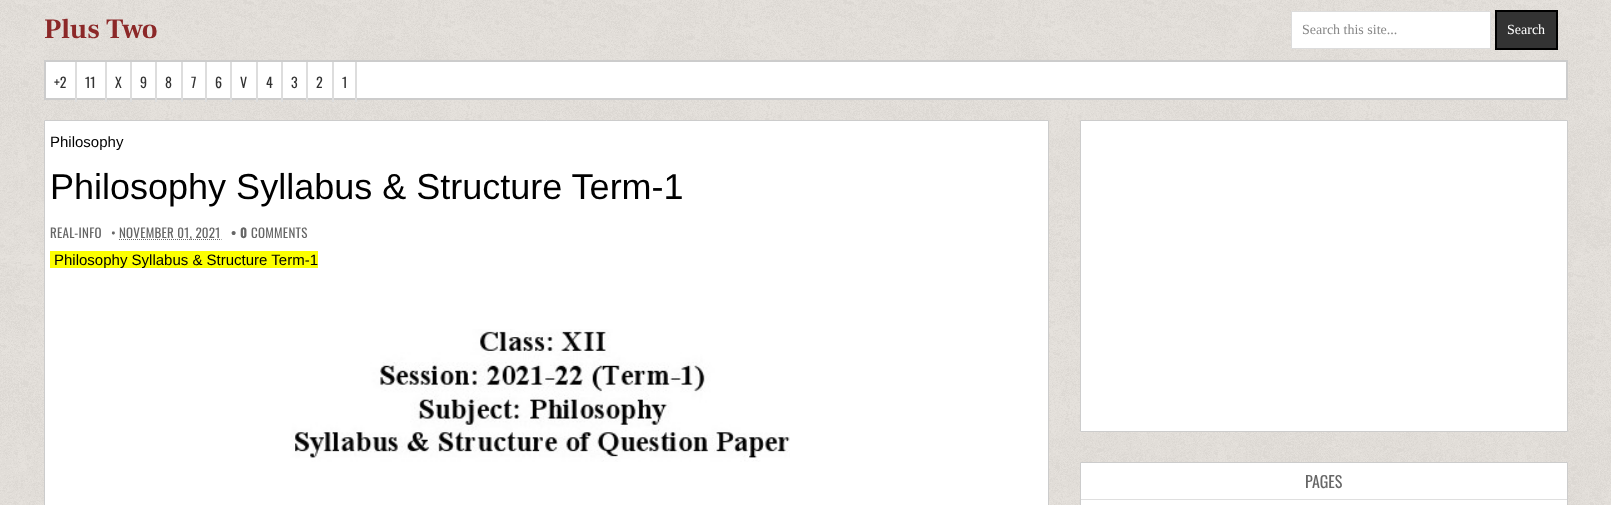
(async () => {
    const canvas = document.querySelector("canvas");
    canvas.width = 1611;
    canvas.height = 505;
    const context = canvas.getContext("2d");
    context.miterLimit = 4;
    context.fontKerning = "normal";
    function write(s, x, y, font, color) {
        context.font = font;
        context.fillStyle = color;
        context.fillText(s, x, y);
    }
    function block(x, y, w, h, color) {
        context.fillStyle = color;
        context.fillRect(x, y, w, h);
    }
    async function photo(src, x, y, w, h) {
        const img = new Image();
        img.src = src;
        await img.decode();
        context.drawImage(img, x, y, w, h);
    }

    block(0, 0, 1611, 505, "rgb(255, 255, 255)");
    await photo("media/1.png", 0, 0, 1611, 505);
    write("Plus Two", 44, 38, "bold 28px Frank Ruhl Libre", "rgb(140, 40, 40)");
    context.fillStyle = "rgb(255, 255, 255)";
    context.beginPath();
    context.rect(1291.5, 11.5, 199, 37);
    context.fill();
    context.strokeStyle = "rgb(220, 220, 220)";
    context.stroke();
    write("Search this site...", 1302, 34, "14px Liberation Serif", "rgb(136, 136, 136)");
    context.fillStyle = "rgb(51, 51, 51)";
    context.beginPath();
    context.rect(1496, 11, 61, 38);
    context.fill();
    context.strokeStyle = "rgb(0, 0, 0)";
    context.lineWidth = 2;
    context.stroke();
    write("Search", 1507, 34, "14px Liberation Serif", "rgb(255, 255, 255)");
    context.beginPath();
    context.rect(45, 61, 1522, 38);
    context.fill();
    context.strokeStyle = "rgb(204, 204, 204)";
    context.stroke();
    block(75, 62, 2, 40, "rgb(221, 221, 221)");
    write("+2", 54, 88, "14px Oswald", "rgb(51, 51, 51)");
    block(105, 62, 2, 40, "rgb(221, 221, 221)");
    write("11", 85, 88, "14px Oswald", "rgb(51, 51, 51)");
    block(130, 62, 2, 40, "rgb(221, 221, 221)");
    write("X", 115, 88, "14px Oswald", "rgb(51, 51, 51)");
    block(155, 62, 2, 40, "rgb(221, 221, 221)");
    write("9", 140, 88, "14px Oswald", "rgb(51, 51, 51)");
    block(181, 62, 2, 40, "rgb(221, 221, 221)");
    write("8", 165, 88, "14px Oswald", "rgb(51, 51, 51)");
    block(205, 62, 2, 40, "rgb(221, 221, 221)");
    write("7", 191, 88, "14px Oswald", "rgb(51, 51, 51)");
    block(230, 62, 2, 40, "rgb(221, 221, 221)");
    write("6", 215, 88, "14px Oswald", "rgb(51, 51, 51)");
    block(256, 62, 2, 40, "rgb(221, 221, 221)");
    write("V", 240, 88, "14px Oswald", "rgb(51, 51, 51)");
    block(281, 62, 2, 40, "rgb(221, 221, 221)");
    write("4", 266, 88, "14px Oswald", "rgb(51, 51, 51)");
    block(306, 62, 2, 40, "rgb(221, 221, 221)");
    write("3", 291, 88, "14px Oswald", "rgb(51, 51, 51)");
    block(332, 62, 2, 40, "rgb(221, 221, 221)");
    write("2", 316, 88, "14px Oswald", "rgb(51, 51, 51)");
    block(355, 62, 2, 40, "rgb(221, 221, 221)");
    write("1", 342, 88, "14px Oswald", "rgb(51, 51, 51)");
    context.fillStyle = "rgb(255, 255, 255)";
    context.beginPath();
    context.rect(44.5, 120.5, 1004, 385);
    context.fill();
    context.lineWidth = 1;
    context.stroke();
    write("Philosophy", 50, 147, "15px Liberation Sans", "rgb(0, 0, 0)");
    write("Philosophy Syllabus & Structure Term-1", 50, 199, "36px Liberation Sans", "rgb(0, 0, 0)");
    context.letterSpacing = "0.25px";
    write("REAL-INFO", 50, 238, "13px Oswald", "rgb(102, 102, 102)");
    write("•", 111, 238, "13px Oswald", "rgb(102, 102, 102)");
    context.beginPath();
    context.moveTo(119, 239.5);
    context.lineTo(221.5, 239.5);
    context.strokeStyle = "rgb(102, 102, 102)";
    context.setLineDash([1, 1]);
    context.stroke();
    write("NOVEMBER 01, 2021", 119, 238, "13px Oswald", "rgb(102, 102, 102)");
    context.letterSpacing = "0px";
    write("•", 231, 238, "15px Liberation Sans", "rgb(102, 102, 102)");
    context.letterSpacing = "0.25px";
    write("0", 240, 238, "bold 13px Oswald", "rgb(102, 102, 102)");
    write("COMMENTS", 251, 238, "13px Oswald", "rgb(102, 102, 102)");
    block(50, 251, 268, 17, "rgb(252, 255, 1)");
    context.letterSpacing = "0px";
    write("Philosophy Syllabus & Structure Term-1", 54, 265, "15px Liberation Sans", "rgb(0, 0, 0)");
    await photo("media/2.png", 290, 329, 500, 133);
    context.fillStyle = "rgb(255, 255, 255)";
    context.beginPath();
    context.rect(1080.5, 120.5, 487, 311);
    context.fill();
    context.strokeStyle = "rgb(204, 204, 204)";
    context.setLineDash([]);
    context.stroke();
    context.beginPath();
    context.rect(1080.5, 462.5, 487, 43);
    context.fill();
    context.stroke();
    block(1081, 499, 486, 1, "rgb(223, 223, 223)");
    write("PAGES", 1305, 488, "16px Oswald", "rgb(102, 102, 102)");
})();
